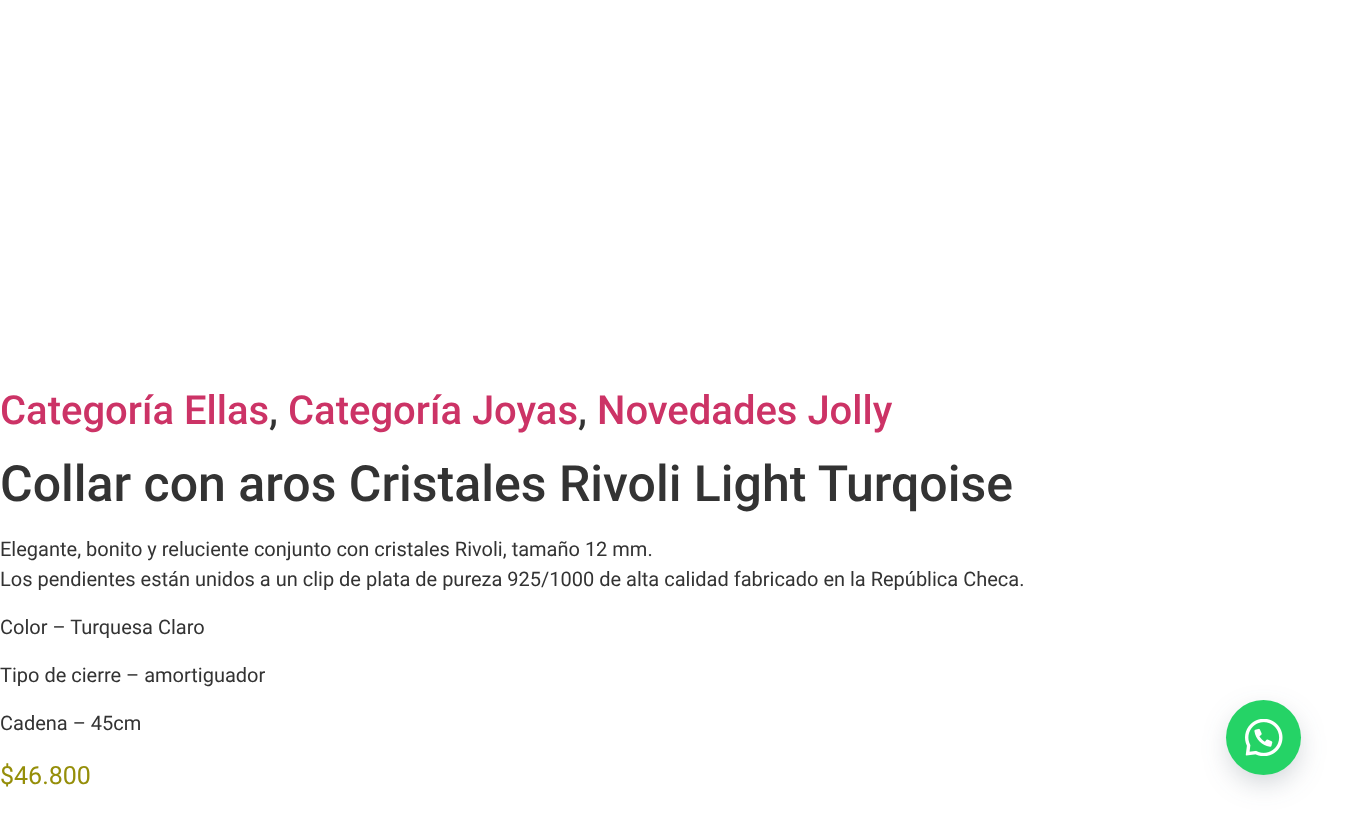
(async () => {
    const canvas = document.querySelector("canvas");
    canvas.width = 1351;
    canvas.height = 824;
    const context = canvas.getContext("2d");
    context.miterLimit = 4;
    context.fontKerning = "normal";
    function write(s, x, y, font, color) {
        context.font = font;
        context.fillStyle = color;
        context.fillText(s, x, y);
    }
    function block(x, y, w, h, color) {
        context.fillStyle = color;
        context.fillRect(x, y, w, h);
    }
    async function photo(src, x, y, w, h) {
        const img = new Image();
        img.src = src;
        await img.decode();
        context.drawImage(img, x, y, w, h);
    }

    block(0, 0, 1351, 824, "rgb(255, 255, 255)");
    write("Categoría Ellas", 0, 424, "500 40px Roboto", "rgb(204, 51, 102)");
    write(",", 269, 424, "500 40px Roboto", "rgb(51, 51, 51)");
    write("Categoría Joyas", 288, 424, "500 40px Roboto", "rgb(204, 51, 102)");
    write(",", 578, 424, "500 40px Roboto", "rgb(51, 51, 51)");
    write("Novedades Jolly", 597, 424, "500 40px Roboto", "rgb(204, 51, 102)");
    write("Collar con aros Cristales Rivoli Light Turqoise", 0, 501, "500 50px Roboto", "rgb(51, 51, 51)");
    write("Elegante, bonito y reluciente conjunto con cristales Rivoli, tamaño 12 mm.", 0, 556, "20px Roboto", "rgb(51, 51, 51)");
    write("Los pendientes están unidos a un clip de plata de pureza 925/1000 de alta calidad fabricado en la República Checa.", 0, 586, "20px Roboto", "rgb(51, 51, 51)");
    write("Color – Turquesa Claro", 0, 634, "20px Roboto", "rgb(51, 51, 51)");
    write("Tipo de cierre – amortiguador", 0, 682, "20px Roboto", "rgb(51, 51, 51)");
    write("Cadena – 45cm", 0, 730, "20px Roboto", "rgb(51, 51, 51)");
    write("$46.800", 0, 784, "25px Roboto", "rgb(149, 142, 9)");
    context.fillStyle = "rgba(45, 62, 79, 0.3)";
    context.filter = "blur(15.5px)";
    context.beginPath();
    context.roundRect(1233, 716, 62, 63, 31);
    context.fill();
    context.filter = "none";
    context.fillStyle = "rgb(37, 211, 102)";
    context.beginPath();
    context.arc(1263.5, 737.5, 37.5, 0, Math.PI * 2);
    context.fill();
    await photo("media/1.png", 1245, 719, 38, 37);
})();
